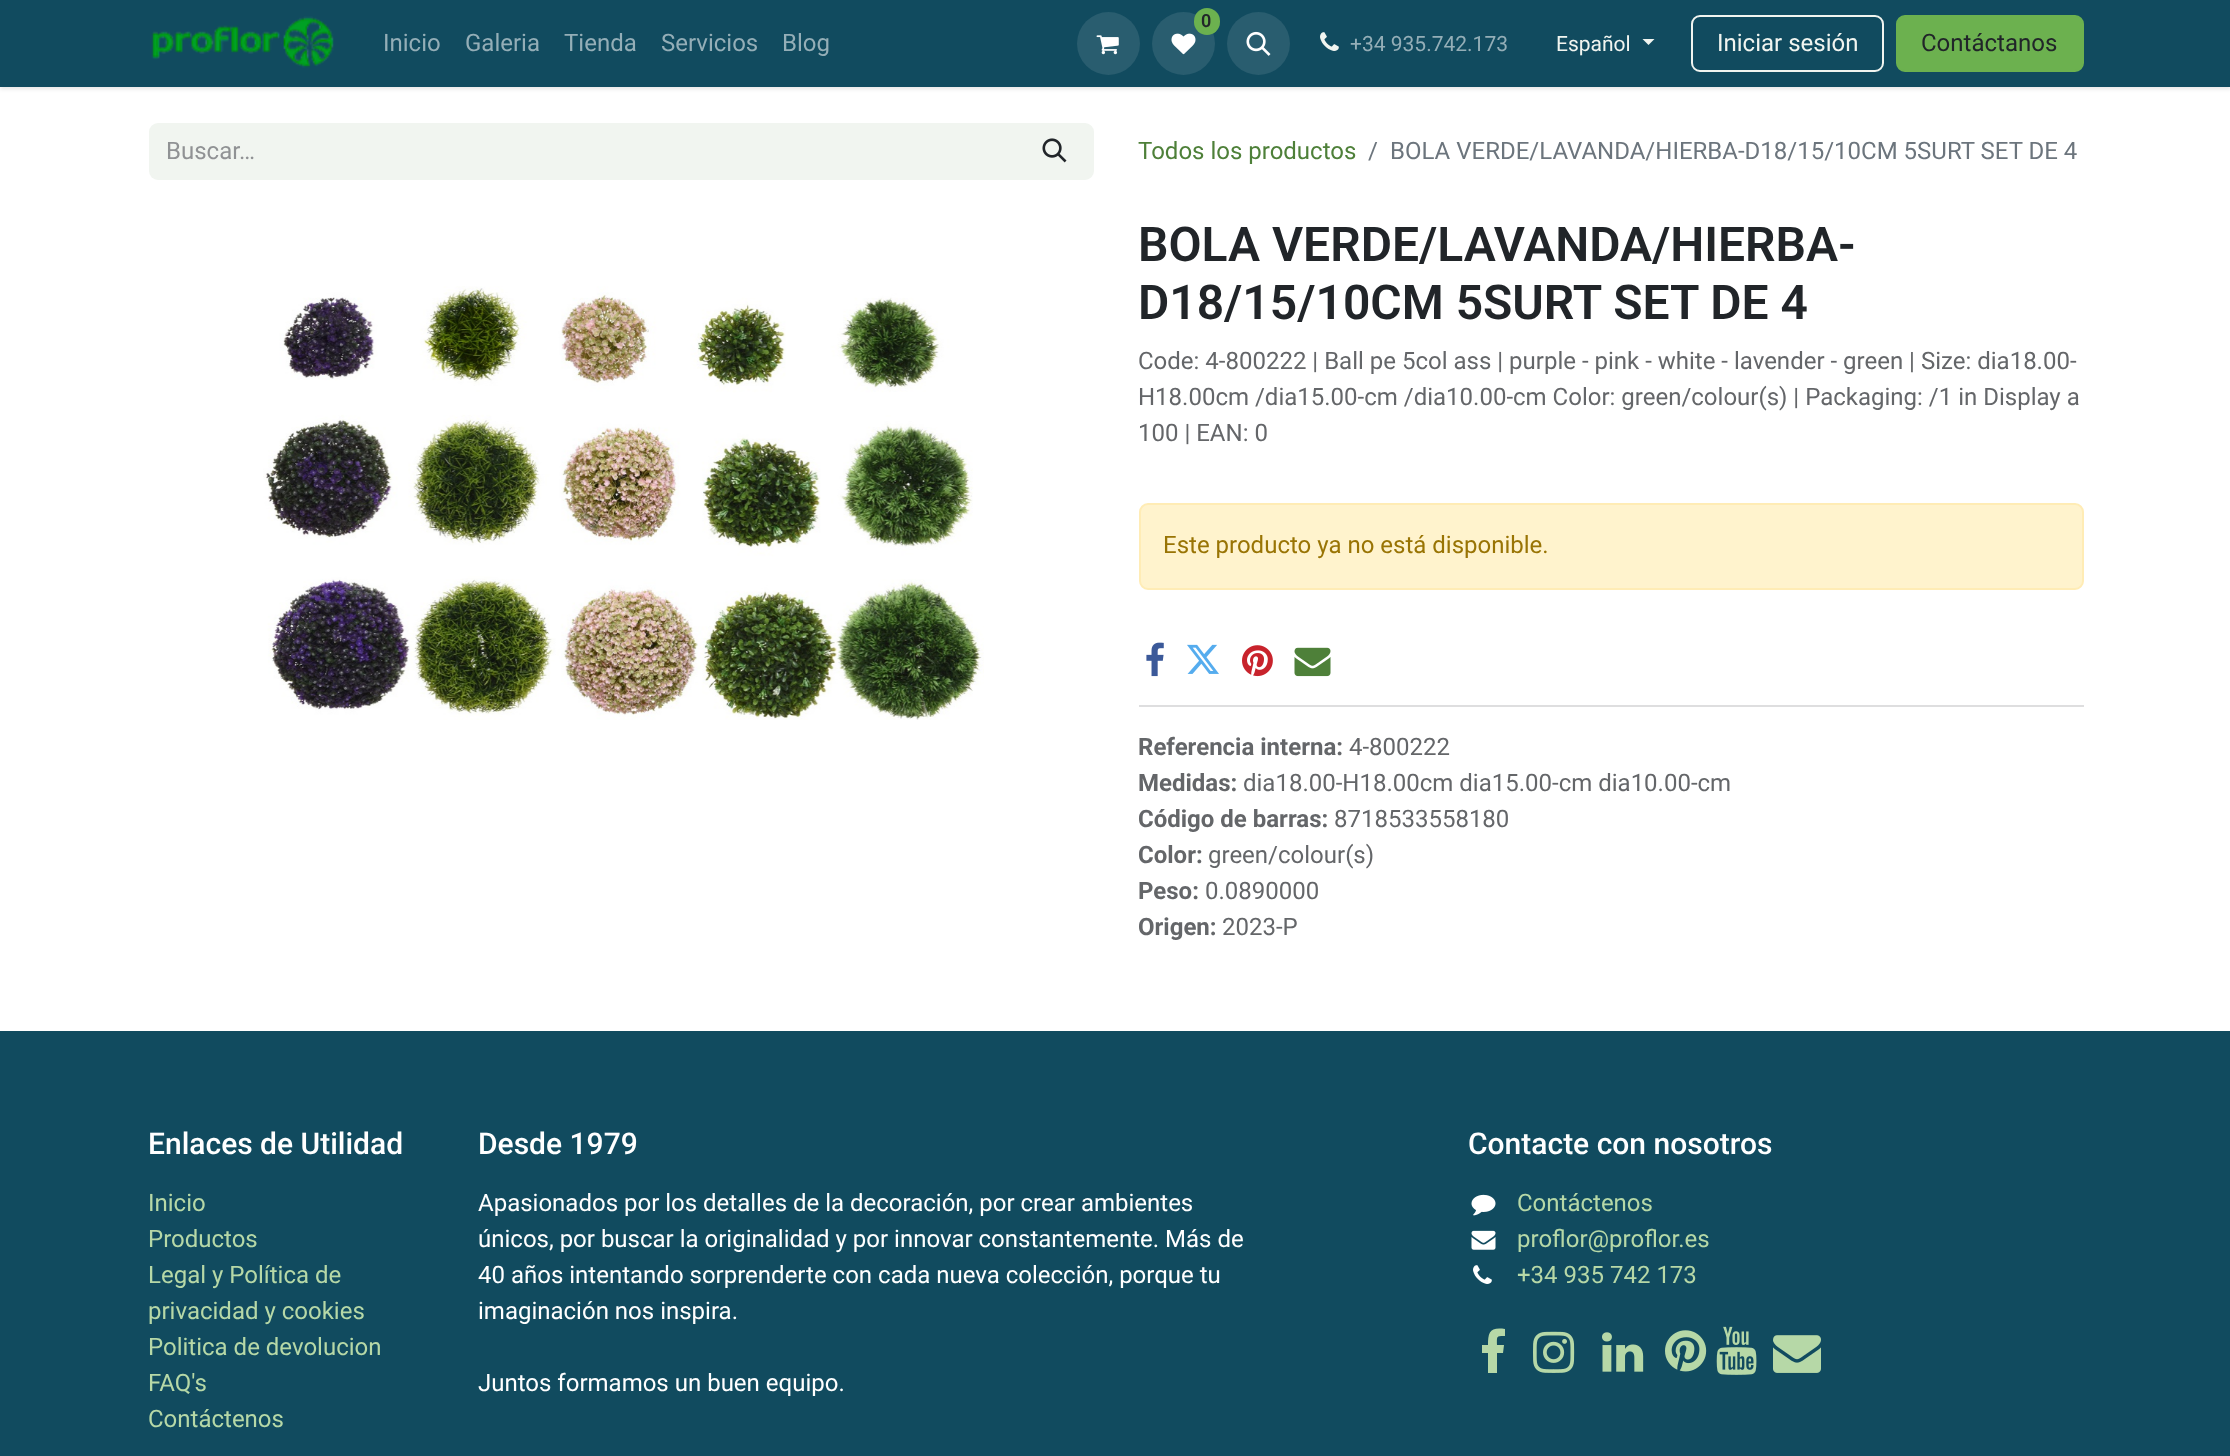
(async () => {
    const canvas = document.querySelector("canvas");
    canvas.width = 2230;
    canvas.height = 1456;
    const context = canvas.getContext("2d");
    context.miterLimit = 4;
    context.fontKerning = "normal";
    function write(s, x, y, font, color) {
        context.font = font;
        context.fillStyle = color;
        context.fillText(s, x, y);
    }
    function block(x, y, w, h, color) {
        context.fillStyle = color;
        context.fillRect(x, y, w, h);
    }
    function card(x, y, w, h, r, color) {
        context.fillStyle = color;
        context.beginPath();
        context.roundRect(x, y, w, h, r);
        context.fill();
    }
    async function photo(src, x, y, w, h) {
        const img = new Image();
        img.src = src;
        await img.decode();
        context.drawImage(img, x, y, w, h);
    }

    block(0, 0, 2230, 1456, "rgb(255, 255, 255)");
    context.fillStyle = "rgba(0, 0, 0, 0.1)";
    context.filter = "blur(2px)";
    context.beginPath();
    context.rect(0, 2, 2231, 87);
    context.fill();
    context.filter = "none";
    block(0, 0, 2230, 87, "rgb(17, 75, 95)");
    await photo("media/1.png", 151, 16, 183, 52);
    write("Inicio", 383, 51, "24px Roboto", "rgb(148, 174, 183)");
    write("Galeria", 465, 51, "24px Roboto", "rgb(148, 174, 183)");
    write("Tienda", 564, 51, "24px Roboto", "rgb(148, 174, 183)");
    write("Servicios", 661, 51, "24px Roboto", "rgb(148, 174, 183)");
    write("Blog", 782, 51, "24px Roboto", "rgb(148, 174, 183)");
    context.fillStyle = "rgb(41, 93, 111)";
    context.beginPath();
    context.arc(1108.5, 43.5, 31.5, 0, Math.PI * 2);
    context.fill();
    await photo("media/2.png", 1096, 35, 23, 20);
    context.beginPath();
    context.arc(1183.5, 43.5, 31.5, 0, Math.PI * 2);
    context.fill();
    await photo("media/3.png", 1171, 33, 25, 22);
    card(1194, 8, 26, 27, 13, "rgb(108, 177, 79)");
    write("0", 1201, 27, "600 18px Roboto", "rgb(33, 37, 41)");
    context.fillStyle = "rgb(41, 93, 111)";
    context.beginPath();
    context.arc(1258.5, 43.5, 31.5, 0, Math.PI * 2);
    context.fill();
    await photo("media/4.png", 1246, 31, 25, 25);
    await photo("media/5.png", 1320, 32, 19, 19);
    write("+34 935.742.173", 1350, 51, "21px Roboto", "rgb(148, 174, 183)");
    write("Español", 1556, 51, "21px Roboto", "rgb(241, 245, 240)");
    context.beginPath();
    context.moveTo(1642.5, 39);
    context.lineTo(1654.5, 39);
    context.lineTo(1648.5, 45);
    context.closePath();
    context.fill();
    context.beginPath();
    context.roundRect(1692, 16, 191, 55, 8);
    context.strokeStyle = "rgb(241, 245, 240)";
    context.lineWidth = 2;
    context.stroke();
    write("Iniciar sesión", 1717, 51, "24px Roboto", "rgb(241, 245, 240)");
    context.fillStyle = "rgb(108, 177, 79)";
    context.beginPath();
    context.roundRect(1897, 16, 186, 55, 8);
    context.fill();
    context.strokeStyle = "rgb(108, 177, 79)";
    context.stroke();
    write("Contáctanos", 1921, 51, "24px Roboto", "rgb(33, 37, 41)");
    context.fillStyle = "rgb(241, 245, 240)";
    context.beginPath();
    context.roundRect(149, 123, 870, 57, [9, 0, 0, 9]);
    context.fill();
    write("Buscar…", 166, 159, "24px Roboto", "rgb(144, 146, 148)");
    context.fillStyle = "rgb(241, 245, 240)";
    context.beginPath();
    context.roundRect(1018, 124, 75, 55, [0, 8, 8, 0]);
    context.fill();
    context.strokeStyle = "rgb(241, 245, 240)";
    context.stroke();
    await photo("media/6.png", 1042, 138, 25, 25);
    write("Todos los productos", 1138, 159, "24px Roboto", "rgb(78, 128, 57)");
    write("/", 1368, 159, "24px Roboto", "rgb(108, 117, 125)");
    write("BOLA VERDE/LAVANDA/HIERBA-D18/15/10CM 5SURT SET DE 4", 1390, 159, "24px Roboto", "rgb(108, 117, 125)");
    await photo("media/7.png", 263, 286, 721, 434);
    write("BOLA VERDE/LAVANDA/HIERBA-", 1138, 261, "600 48px Roboto", "rgb(33, 37, 41)");
    write("D18/15/10CM 5SURT SET DE 4", 1138, 319, "600 48px Roboto", "rgb(33, 37, 41)");
    write("Code: 4-800222 | Ball pe 5col ass | purple - pink - white - lavender - green | Size: dia18.00-", 1138, 369, "24px Roboto", "rgb(100, 102, 105)");
    write("H18.00cm /dia15.00-cm /dia10.00-cm Color: green/colour(s) | Packaging: /1 in Display a", 1138, 405, "24px Roboto", "rgb(100, 102, 105)");
    write("100 | EAN: 0", 1138, 441, "24px Roboto", "rgb(100, 102, 105)");
    context.fillStyle = "rgb(255, 243, 205)";
    context.beginPath();
    context.roundRect(1140, 504, 943, 85, 8);
    context.fill();
    context.strokeStyle = "rgb(255, 236, 181)";
    context.stroke();
    write("Este producto ya no está disponible.", 1163, 553, "24px Roboto", "rgb(153, 116, 4)");
    await photo("media/8.png", 1146, 642, 18, 35);
    await photo("media/9.png", 1187, 644, 32, 30);
    await photo("media/10.png", 1242, 645, 31, 32);
    await photo("media/11.png", 1294, 647, 37, 30);
    block(1139, 705, 945, 2, "rgb(222, 222, 223)");
    write("Referencia interna:", 1138, 755, "bold 24px Roboto", "rgb(100, 102, 105)");
    write("4-800222", 1349, 755, "24px Roboto", "rgb(100, 102, 105)");
    write("Medidas:", 1138, 791, "bold 24px Roboto", "rgb(100, 102, 105)");
    write("dia18.00-H18.00cm dia15.00-cm dia10.00-cm", 1243, 791, "24px Roboto", "rgb(100, 102, 105)");
    write("Código de barras:", 1138, 827, "bold 24px Roboto", "rgb(100, 102, 105)");
    write("8718533558180", 1334, 827, "24px Roboto", "rgb(100, 102, 105)");
    write("Color:", 1138, 863, "bold 24px Roboto", "rgb(100, 102, 105)");
    write("green/colour(s)", 1208, 863, "24px Roboto", "rgb(100, 102, 105)");
    write("Peso:", 1138, 899, "bold 24px Roboto", "rgb(100, 102, 105)");
    write("0.0890000", 1205, 899, "24px Roboto", "rgb(100, 102, 105)");
    write("Origen:", 1138, 935, "bold 24px Roboto", "rgb(100, 102, 105)");
    write("2023-P", 1222, 935, "24px Roboto", "rgb(100, 102, 105)");
    block(0, 1031, 2230, 425, "rgb(17, 75, 95)");
    write("Enlaces de Utilidad", 148, 1154, "500 30px Roboto", "rgb(255, 255, 255)");
    write("Inicio", 148, 1211, "24px Roboto", "rgb(182, 216, 167)");
    write("Productos", 148, 1247, "24px Roboto", "rgb(182, 216, 167)");
    write("Legal y Política de", 148, 1283, "24px Roboto", "rgb(182, 216, 167)");
    write("privacidad y cookies", 148, 1319, "24px Roboto", "rgb(182, 216, 167)");
    write("Politica de devolucion", 148, 1355, "24px Roboto", "rgb(182, 216, 167)");
    write("FAQ's", 148, 1391, "24px Roboto", "rgb(182, 216, 167)");
    write("Contáctenos", 148, 1427, "24px Roboto", "rgb(182, 216, 167)");
    write("Desde 1979", 478, 1154, "500 30px Roboto", "rgb(255, 255, 255)");
    write("Apasionados por los detalles de la decoración, por crear ambientes", 478, 1211, "24px Roboto", "rgb(255, 255, 255)");
    write("únicos, por buscar la originalidad y por innovar constantemente. Más de", 478, 1247, "24px Roboto", "rgb(255, 255, 255)");
    write("40 años intentando sorprenderte con cada nueva colección, porque tu", 478, 1283, "24px Roboto", "rgb(255, 255, 255)");
    write("imaginación nos inspira.", 478, 1319, "24px Roboto", "rgb(255, 255, 255)");
    write("Juntos formamos un buen equipo.", 478, 1391, "24px Roboto", "rgb(255, 255, 255)");
    write("Contacte con nosotros", 1468, 1154, "500 30px Roboto", "rgb(255, 255, 255)");
    await photo("media/12.png", 1471, 1194, 25, 22);
    write("Contáctenos", 1517, 1211, "24px Roboto", "rgb(182, 216, 167)");
    await photo("media/13.png", 1471, 1230, 25, 20);
    write("proflor@proflor.es", 1517, 1247, "24px Roboto", "rgb(182, 216, 167)");
    await photo("media/14.png", 1473, 1265, 19, 19);
    write("+34 935 742 173", 1517, 1283, "24px Roboto", "rgb(182, 216, 167)");
    context.beginPath();
    context.moveTo(1505, 1329);
    context.lineTo(1505, 1336);
    context.bezierCurveTo(1496, 1336, 1497, 1336, 1497, 1345);
    context.lineTo(1504, 1345);
    context.lineTo(1503, 1353);
    context.lineTo(1497, 1353);
    context.lineTo(1497, 1373);
    context.lineTo(1488, 1373);
    context.lineTo(1488, 1353);
    context.lineTo(1482, 1353);
    context.lineTo(1482, 1345);
    context.lineTo(1488, 1345);
    context.bezierCurveTo(1488, 1332, 1490, 1327, 1505, 1329);
    context.closePath();
    context.fill();
    await photo("media/15.png", 1533, 1331, 42, 42);
    await photo("media/16.png", 1602, 1332, 42, 40);
    await photo("media/17.png", 1665, 1330, 42, 42);
    await photo("media/18.png", 1716, 1326, 41, 49);
    await photo("media/19.png", 1773, 1335, 48, 38);
})();
